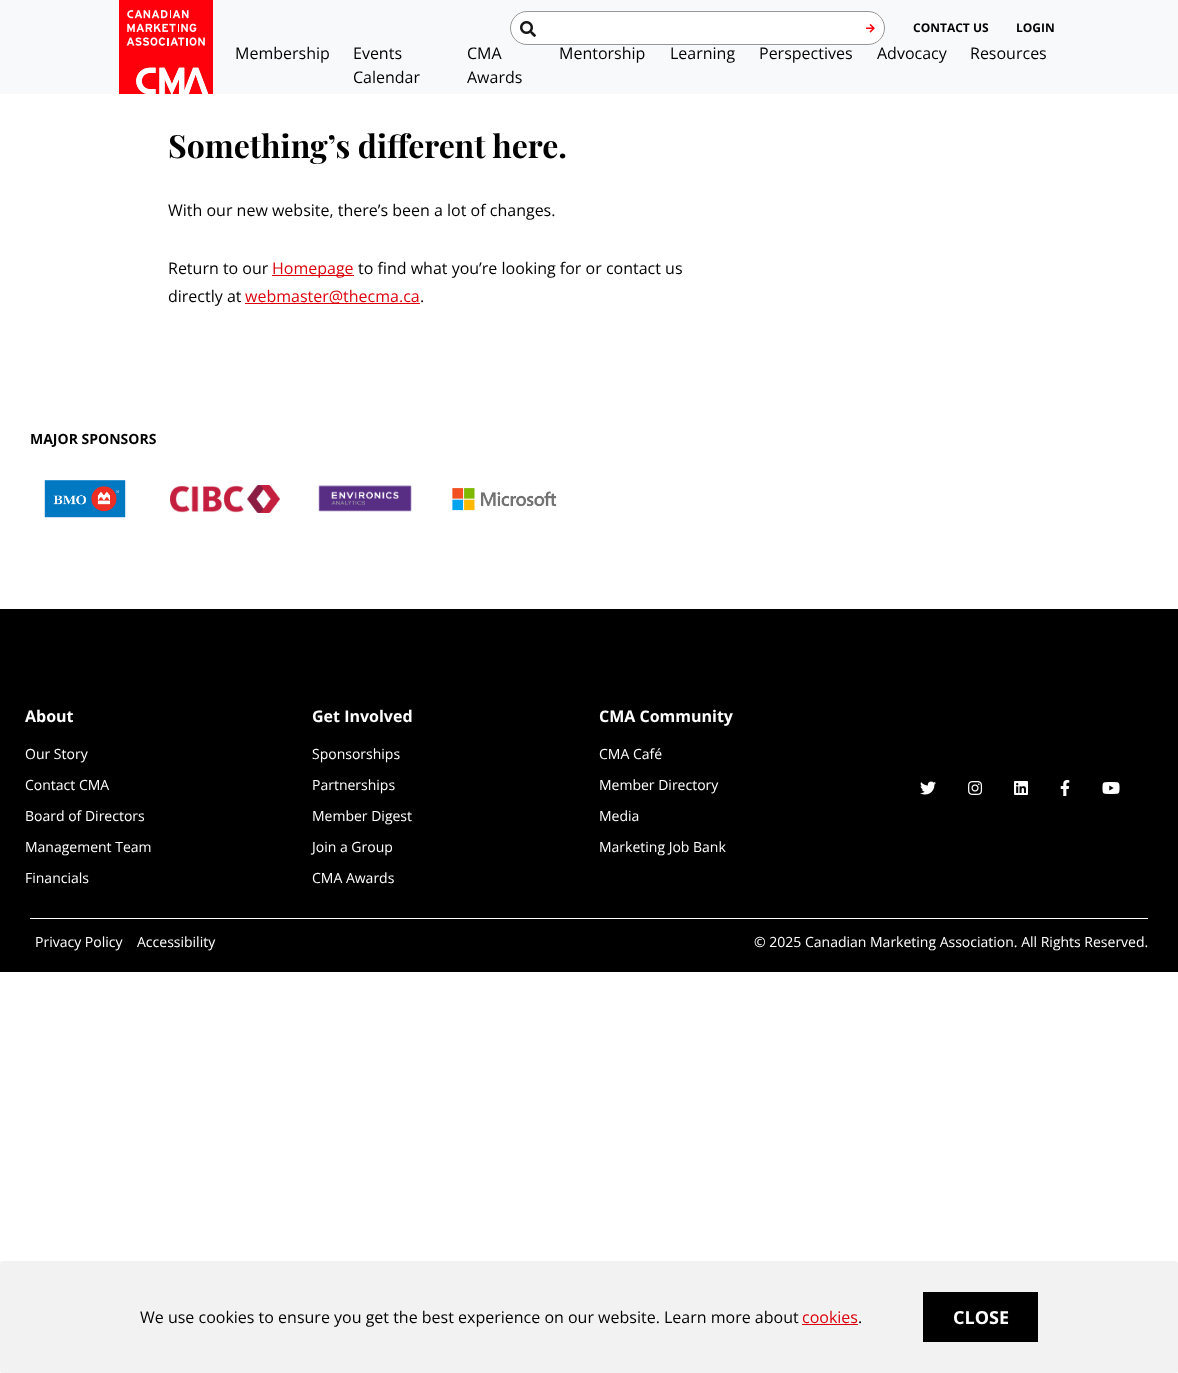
(async () => {
    const canvas = document.querySelector("canvas");
    canvas.width = 1178;
    canvas.height = 1373;
    const context = canvas.getContext("2d");
    context.miterLimit = 4;
    context.fontKerning = "normal";
    function write(s, x, y, font, color) {
        context.font = font;
        context.fillStyle = color;
        context.fillText(s, x, y);
    }
    function block(x, y, w, h, color) {
        context.fillStyle = color;
        context.fillRect(x, y, w, h);
    }
    function card(x, y, w, h, r, color) {
        context.fillStyle = color;
        context.beginPath();
        context.roundRect(x, y, w, h, r);
        context.fill();
    }
    async function photo(src, x, y, w, h) {
        const img = new Image();
        img.src = src;
        await img.decode();
        context.drawImage(img, x, y, w, h);
    }

    block(0, 0, 1178, 1373, "rgb(255, 255, 255)");
    block(0, 0, 1178, 94, "rgb(248, 249, 250)");
    await photo("media/1.png", 119, 0, 94, 94);
    context.fillStyle = "rgb(255, 255, 255)";
    context.beginPath();
    context.roundRect(510.5, 11.5, 374, 33, 16.5);
    context.fill();
    context.strokeStyle = "rgb(151, 151, 151)";
    context.stroke();
    await photo("media/2.png", 520, 21, 16, 16);
    await photo("media/3.png", 866, 24, 9, 9);
    write("CONTACT US", 913, 32, "bold 12px Open Sans", "rgb(0, 0, 0)");
    write("LOGIN", 1016, 32, "bold 12px Open Sans", "rgb(0, 0, 0)");
    write("Membership", 235, 59, "16px Open Sans", "rgb(0, 0, 0)");
    write("Events", 353, 59, "16px Open Sans", "rgb(0, 0, 0)");
    write("Calendar", 353, 83, "16px Open Sans", "rgb(0, 0, 0)");
    write("CMA", 467, 59, "16px Open Sans", "rgb(0, 0, 0)");
    write("Awards", 467, 83, "16px Open Sans", "rgb(0, 0, 0)");
    write("Mentorship", 559, 59, "16px Open Sans", "rgb(0, 0, 0)");
    write("Learning", 670, 59, "16px Open Sans", "rgb(0, 0, 0)");
    write("Perspectives", 759, 59, "16px Open Sans", "rgb(0, 0, 0)");
    write("Advocacy", 877, 59, "16px Open Sans", "rgb(0, 0, 0)");
    write("Resources", 970, 59, "16px Open Sans", "rgb(0, 0, 0)");
    write("Something’s different here.", 168, 158, "bold 32px Playfair Display", "rgb(0, 0, 0)");
    write("With our new website, there’s been a lot of changes.", 168, 216, "16px Open Sans", "rgb(0, 0, 0)");
    write("Return to our", 168, 274, "16px Open Sans", "rgb(0, 0, 0)");
    block(272, 275, 82, 1, "rgb(219, 0, 11)");
    write("Homepage", 272, 274, "16px Open Sans", "rgb(219, 0, 11)");
    write("to find what you’re looking for or contact us", 358, 274, "16px Open Sans", "rgb(0, 0, 0)");
    write("directly at", 168, 302, "16px Open Sans", "rgb(0, 0, 0)");
    block(245, 303, 175, 1, "rgb(219, 0, 11)");
    write("webmaster@thecma.ca", 245, 302, "16px Open Sans", "rgb(219, 0, 11)");
    write(".", 420, 302, "16px Open Sans", "rgb(0, 0, 0)");
    write("MAJOR SPONSORS", 30, 444, "bold 14px Open Sans", "rgb(0, 0, 0)");
    await photo("media/4.png", 44, 480, 82, 38);
    await photo("media/5.png", 170, 485, 110, 28);
    await photo("media/6.png", 318, 485, 94, 27);
    await photo("media/7.png", 452, 488, 105, 23);
    block(0, 609, 1178, 363, "rgb(0, 0, 0)");
    write("About", 25, 722, "bold 16px Open Sans", "rgb(255, 255, 255)");
    write("Our Story", 25, 759, "14px Open Sans", "rgb(255, 255, 255)");
    write("Contact CMA", 25, 790, "14px Open Sans", "rgb(255, 255, 255)");
    write("Board of Directors", 25, 821, "14px Open Sans", "rgb(255, 255, 255)");
    write("Management Team", 25, 852, "14px Open Sans", "rgb(255, 255, 255)");
    write("Financials", 25, 883, "14px Open Sans", "rgb(255, 255, 255)");
    write("Get Involved", 312, 722, "bold 16px Open Sans", "rgb(255, 255, 255)");
    write("Sponsorships", 312, 759, "14px Open Sans", "rgb(255, 255, 255)");
    write("Partnerships", 312, 790, "14px Open Sans", "rgb(255, 255, 255)");
    write("Member Digest", 312, 821, "14px Open Sans", "rgb(255, 255, 255)");
    write("Join a Group", 312, 852, "14px Open Sans", "rgb(255, 255, 255)");
    write("CMA Awards", 312, 883, "14px Open Sans", "rgb(255, 255, 255)");
    write("CMA Community", 599, 722, "bold 16px Open Sans", "rgb(255, 255, 255)");
    write("CMA Café", 599, 759, "14px Open Sans", "rgb(255, 255, 255)");
    write("Member Directory", 599, 790, "14px Open Sans", "rgb(255, 255, 255)");
    write("Media", 599, 821, "14px Open Sans", "rgb(255, 255, 255)");
    write("Marketing Job Bank", 599, 852, "14px Open Sans", "rgb(255, 255, 255)");
    await photo("media/8.png", 920, 781, 16, 14);
    await photo("media/9.png", 968, 781, 15, 14);
    await photo("media/10.png", 1014, 781, 14, 14);
    await photo("media/11.png", 1060, 780, 10, 16);
    await photo("media/12.png", 1102, 782, 18, 12);
    block(30, 918, 1118, 1, "rgb(255, 255, 255)");
    write("Privacy Policy", 35, 947, "14px Open Sans", "rgb(255, 255, 255)");
    write("Accessibility", 137, 947, "14px Open Sans", "rgb(255, 255, 255)");
    write("© 2025 Canadian Marketing Association. All Rights Reserved.", 754, 947, "14px Open Sans", "rgb(255, 255, 255)");
    card(0, 1261, 1178, 112, 2.5, "rgb(242, 242, 242)");
    write("We use cookies to ensure you get the best experience on our website. Learn more about", 140, 1323, "16px Open Sans", "rgb(0, 0, 0)");
    write("cookies", 802, 1323, "16px Open Sans", "rgb(219, 0, 11)");
    block(802, 1324, 56, 1, "rgb(219, 0, 11)");
    write(".", 858, 1323, "16px Open Sans", "rgb(0, 0, 0)");
    block(923, 1292, 115, 50, "rgb(0, 0, 0)");
    write("CLOSE", 953, 1324, "bold 18px Open Sans", "rgb(255, 255, 255)");
})();
